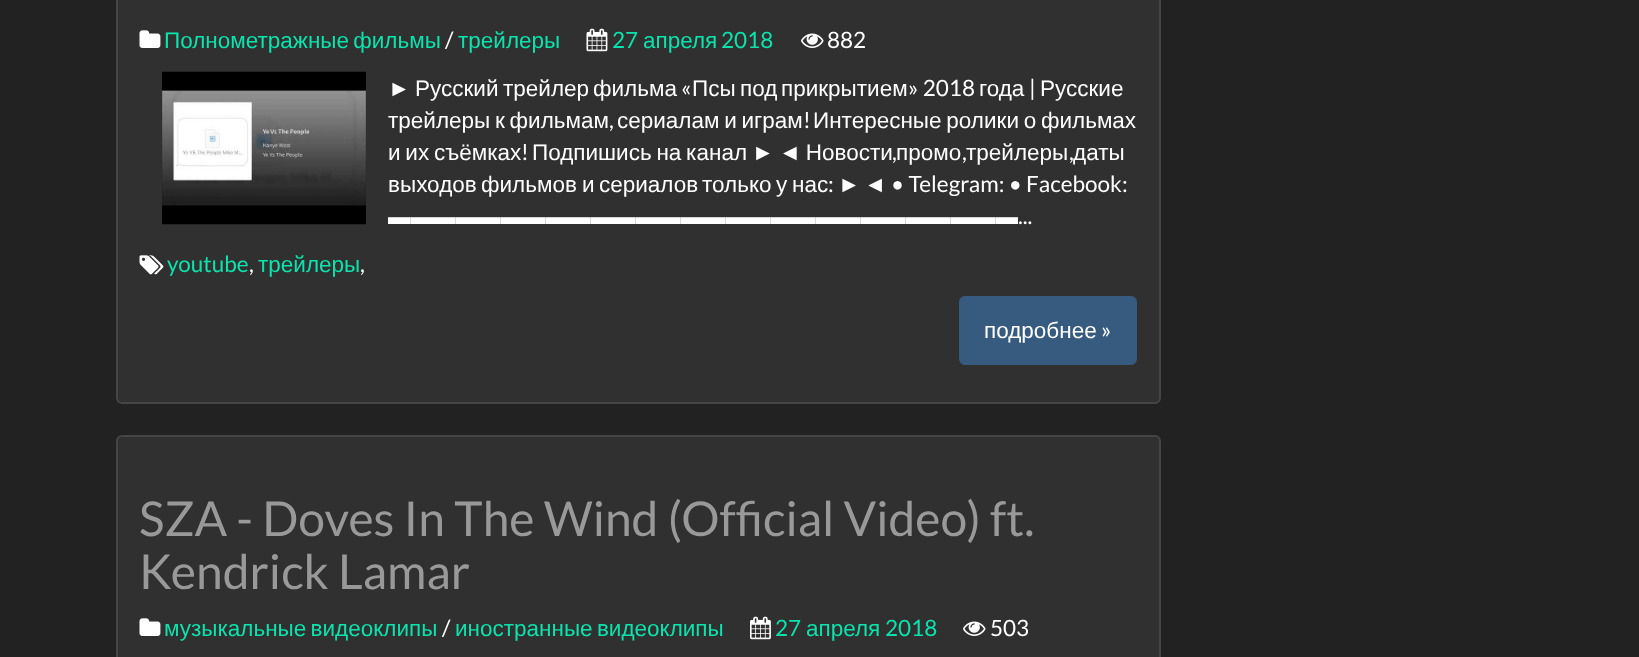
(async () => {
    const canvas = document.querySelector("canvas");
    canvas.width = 1639;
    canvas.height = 657;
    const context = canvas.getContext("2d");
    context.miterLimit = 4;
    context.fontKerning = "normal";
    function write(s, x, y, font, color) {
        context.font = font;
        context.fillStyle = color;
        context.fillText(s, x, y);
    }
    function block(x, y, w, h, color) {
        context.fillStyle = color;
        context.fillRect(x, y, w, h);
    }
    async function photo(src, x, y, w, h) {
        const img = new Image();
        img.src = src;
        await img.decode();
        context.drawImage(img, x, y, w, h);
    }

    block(0, 0, 1639, 657, "rgb(34, 34, 34)");
    context.fillStyle = "rgb(48, 48, 48)";
    context.beginPath();
    context.roundRect(117, -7, 1043, 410, 5);
    context.fill();
    context.strokeStyle = "rgb(70, 69, 69)";
    context.lineWidth = 2;
    context.stroke();
    await photo("media/1.png", 139, 30, 22, 18);
    context.wordSpacing = "-2px";
    write("Полнометражные фильмы", 164, 48, "22.5px Liberation Sans", "rgb(12, 227, 172)");
    context.wordSpacing = "0px";
    write("/", 445, 48, "22.5px Lato", "rgb(255, 255, 255)");
    write("трейлеры", 458, 48, "22.5px Liberation Sans", "rgb(12, 227, 172)");
    await photo("media/2.png", 586, 28, 22, 24);
    write("27", 612, 48, "22.5px Lato", "rgb(12, 227, 172)");
    write("апреля", 643, 48, "22.5px Liberation Sans", "rgb(12, 227, 172)");
    write("2018", 721, 48, "22.5px Lato", "rgb(12, 227, 172)");
    await photo("media/3.png", 801, 33, 23, 15);
    write("882", 827, 48, "22.5px Lato", "rgb(255, 255, 255)");
    await photo("media/4.png", 162, 71, 204, 154);
    write("►", 388, 96, "22.5px Liberation Sans", "rgb(255, 255, 255)");
    write("Русский", 415, 96, "22.5px Liberation Sans", "rgb(255, 255, 255)");
    write("трейлер", 503, 96, "22.5px Liberation Sans", "rgb(255, 255, 255)");
    write("фильма", 593, 96, "22.5px Liberation Sans", "rgb(255, 255, 255)");
    write("«", 681, 96, "22.5px Lato", "rgb(255, 255, 255)");
    write("Псы", 692, 96, "22.5px Liberation Sans", "rgb(255, 255, 255)");
    write("под", 740, 96, "22.5px Liberation Sans", "rgb(255, 255, 255)");
    write("прикрытием", 781, 96, "22.5px Liberation Sans", "rgb(255, 255, 255)");
    write("» 2018", 908, 96, "22.5px Lato", "rgb(255, 255, 255)");
    write("года", 979, 96, "22.5px Liberation Sans", "rgb(255, 255, 255)");
    write("|", 1029, 96, "22.5px Lato", "rgb(255, 255, 255)");
    write("Русские", 1040, 96, "22.5px Liberation Sans", "rgb(255, 255, 255)");
    context.wordSpacing = "-1.5px";
    write("трейлеры к фильмам", 388, 128, "22.5px Liberation Sans", "rgb(255, 255, 255)");
    context.wordSpacing = "0px";
    write(",", 609, 128, "22.5px Lato", "rgb(255, 255, 255)");
    context.wordSpacing = "-1.5px";
    write("сериалам и играм", 617, 128, "22.5px Liberation Sans", "rgb(255, 255, 255)");
    context.wordSpacing = "0px";
    write("!", 803, 128, "22.5px Lato", "rgb(255, 255, 255)");
    context.wordSpacing = "-1.5px";
    write("Интересные ролики о фильмах", 813, 128, "22.5px Liberation Sans", "rgb(255, 255, 255)");
    write("и их съёмках", 388, 160, "22.5px Liberation Sans", "rgb(255, 255, 255)");
    context.wordSpacing = "0px";
    write("!", 521, 160, "22.5px Lato", "rgb(255, 255, 255)");
    context.wordSpacing = "-1.5px";
    write("Подпишись на канал ► ◄ Новости", 532, 160, "22.5px Liberation Sans", "rgb(255, 255, 255)");
    context.wordSpacing = "0px";
    write(",", 892, 160, "22.5px Lato", "rgb(255, 255, 255)");
    write("промо", 896, 160, "22.5px Liberation Sans", "rgb(255, 255, 255)");
    write(",", 962, 160, "22.5px Lato", "rgb(255, 255, 255)");
    write("трейлеры", 966, 160, "22.5px Liberation Sans", "rgb(255, 255, 255)");
    write(",", 1069, 160, "22.5px Lato", "rgb(255, 255, 255)");
    write("даты", 1073, 160, "22.5px Liberation Sans", "rgb(255, 255, 255)");
    write("выходов", 388, 192, "22.5px Liberation Sans", "rgb(255, 255, 255)");
    write("фильмов", 481, 192, "22.5px Liberation Sans", "rgb(255, 255, 255)");
    write("и", 582, 192, "22.5px Liberation Sans", "rgb(255, 255, 255)");
    write("сериалов", 599, 192, "22.5px Liberation Sans", "rgb(255, 255, 255)");
    write("только", 702, 192, "22.5px Liberation Sans", "rgb(255, 255, 255)");
    write("у", 776, 192, "22.5px Liberation Sans", "rgb(255, 255, 255)");
    write("нас", 792, 192, "22.5px Liberation Sans", "rgb(255, 255, 255)");
    write(":", 828, 192, "22.5px Lato", "rgb(255, 255, 255)");
    write("►", 838, 192, "22.5px Liberation Sans", "rgb(255, 255, 255)");
    write("◄", 864, 192, "22.5px Liberation Sans", "rgb(255, 255, 255)");
    write("• Telegram: • Facebook:", 891, 192, "22.5px Lato", "rgb(255, 255, 255)");
    write("▬▬▬▬▬▬▬▬▬▬▬▬▬▬▬▬▬▬▬▬▬▬▬▬▬▬▬▬", 388, 224, "22.5px Liberation Sans", "rgb(255, 255, 255)");
    write("...", 1018, 224, "22.5px Lato", "rgb(255, 255, 255)");
    await photo("media/5.png", 139, 255, 25, 20);
    write("youtube", 167, 272, "22.5px Lato", "rgb(12, 227, 172)");
    write(",", 249, 272, "22.5px Lato", "rgb(255, 255, 255)");
    write("трейлеры", 258, 272, "22.5px Liberation Sans", "rgb(12, 227, 172)");
    write(",", 360, 272, "22.5px Lato", "rgb(255, 255, 255)");
    context.fillStyle = "rgb(55, 90, 127)";
    context.beginPath();
    context.roundRect(960.5, 297.5, 175, 66, 4.5);
    context.fill();
    context.strokeStyle = "rgb(55, 90, 127)";
    context.lineWidth = 3;
    context.stroke();
    write("подробнее", 984, 338, "22.5px Liberation Sans", "rgb(255, 255, 255)");
    write("»", 1101, 338, "22.5px Lato", "rgb(255, 255, 255)");
    context.fillStyle = "rgb(48, 48, 48)";
    context.beginPath();
    context.roundRect(117, 436, 1043, 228, 5);
    context.fill();
    context.strokeStyle = "rgb(70, 69, 69)";
    context.lineWidth = 2;
    context.stroke();
    write("SZA - Doves In The Wind (Official Video) ft.", 139, 536, "48px Lato", "rgb(153, 153, 153)");
    write("Kendrick Lamar", 139, 589, "48px Lato", "rgb(153, 153, 153)");
    await photo("media/1.png", 139, 618, 22, 18);
    context.wordSpacing = "-2px";
    write("музыкальные видеоклипы", 164, 636, "22.5px Liberation Sans", "rgb(12, 227, 172)");
    context.wordSpacing = "0px";
    write("/", 442, 636, "22.5px Lato", "rgb(255, 255, 255)");
    context.wordSpacing = "-2px";
    write("иностранные видеоклипы", 455, 636, "22.5px Liberation Sans", "rgb(12, 227, 172)");
    await photo("media/6.png", 750, 616, 21, 24);
    context.wordSpacing = "0px";
    write("27", 775, 636, "22.5px Lato", "rgb(12, 227, 172)");
    write("апреля", 806, 636, "22.5px Liberation Sans", "rgb(12, 227, 172)");
    write("2018", 885, 636, "22.5px Lato", "rgb(12, 227, 172)");
    await photo("media/3.png", 963, 621, 23, 15);
    write("503", 990, 636, "22.5px Lato", "rgb(255, 255, 255)");
})();
